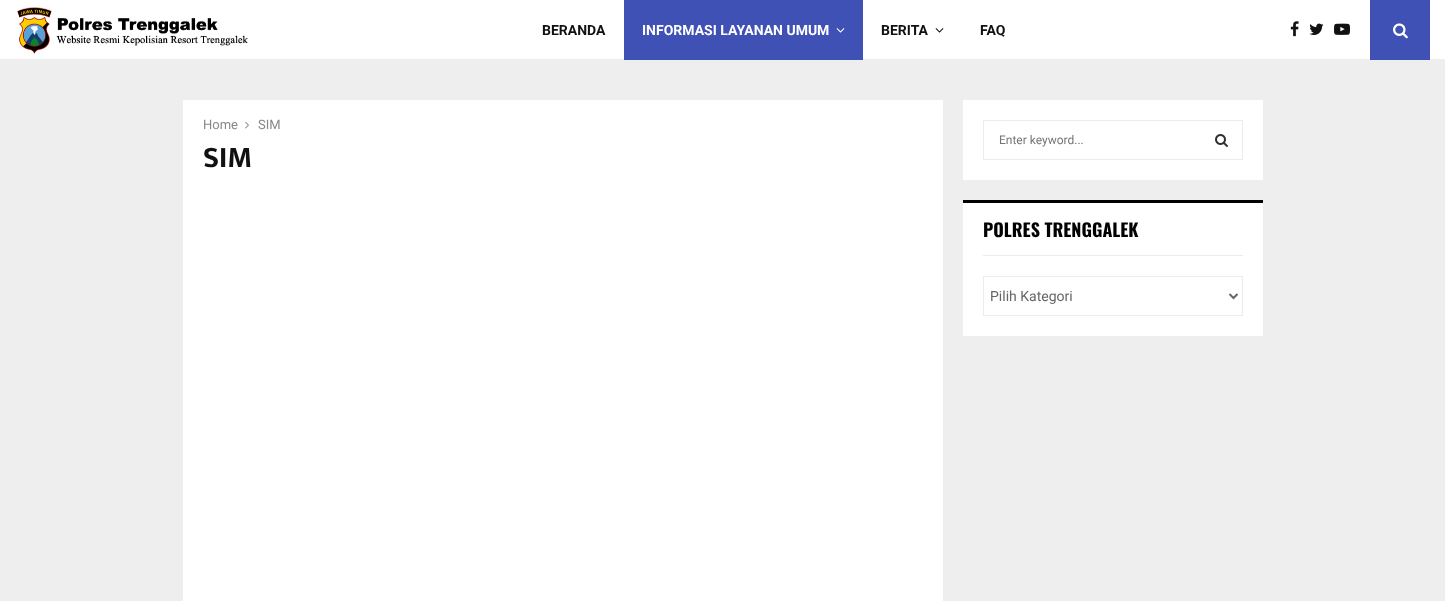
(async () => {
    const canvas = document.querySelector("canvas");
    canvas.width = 1445;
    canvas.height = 601;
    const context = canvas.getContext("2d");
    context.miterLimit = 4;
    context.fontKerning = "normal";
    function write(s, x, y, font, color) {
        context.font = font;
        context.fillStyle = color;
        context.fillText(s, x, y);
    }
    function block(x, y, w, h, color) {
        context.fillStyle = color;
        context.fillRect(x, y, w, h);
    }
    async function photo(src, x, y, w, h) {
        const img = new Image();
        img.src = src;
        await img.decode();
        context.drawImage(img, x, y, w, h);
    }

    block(0, 0, 1445, 601, "rgb(238, 238, 238)");
    block(0, 0, 1445, 59, "rgb(255, 255, 255)");
    await photo("media/1.png", 17, 7, 231, 47);
    write("BERANDA", 542, 35, "bold 14px Roboto", "rgb(17, 17, 17)");
    block(624, 0, 239, 60, "rgb(63, 81, 181)");
    write("INFORMASI LAYANAN UMUM", 642, 35, "bold 14px Roboto", "rgb(255, 255, 255)");
    await photo("media/2.png", 836, 28, 9, 5);
    write("BERITA", 881, 35, "bold 14px Roboto", "rgb(17, 17, 17)");
    await photo("media/3.png", 935, 28, 9, 5);
    write("FAQ", 980, 35, "bold 14px Roboto", "rgb(17, 17, 17)");
    await photo("media/4.png", 1290, 21, 9, 16);
    await photo("media/5.png", 1309, 23, 15, 12);
    await photo("media/6.png", 1334, 23, 16, 12);
    block(1370, 0, 60, 60, "rgb(63, 81, 181)");
    await photo("media/7.png", 1393, 23, 15, 16);
    block(183, 100, 760, 501, "rgb(255, 255, 255)");
    write("Home", 203, 129, "13px Roboto", "rgb(136, 136, 136)");
    await photo("media/8.png", 245, 121, 4, 8);
    write("SIM", 258, 129, "13px Roboto", "rgb(136, 136, 136)");
    write("SIM", 203, 167, "bold 30px Mukta Vaani", "rgb(17, 17, 17)");
    block(963, 100, 300, 80, "rgb(255, 255, 255)");
    context.strokeStyle = "rgb(236, 236, 236)";
    context.strokeRect(983.5, 120.5, 259, 39);
    write("Enter keyword...", 999, 144, "12px Roboto", "rgb(117, 117, 117)");
    await photo("media/9.png", 1215, 134, 13, 13);
    block(963, 203, 300, 133, "rgb(255, 255, 255)");
    block(983, 255, 260, 1, "rgb(236, 236, 236)");
    block(963, 200, 300, 3, "rgb(0, 0, 0)");
    write("POLRES TRENGGALEK", 983, 237, "bold 18px Oswald", "rgb(0, 0, 0)");
    context.strokeRect(983.5, 276.5, 259, 39);
    context.beginPath();
    context.moveTo(1229.5, 294);
    context.lineTo(1233.5, 298);
    context.lineTo(1237.5, 294);
    context.strokeStyle = "rgb(102, 102, 102)";
    context.lineWidth = 2;
    context.stroke();
    write("Pilih Kategori", 990, 301, "14px Roboto", "rgb(102, 102, 102)");
})();
